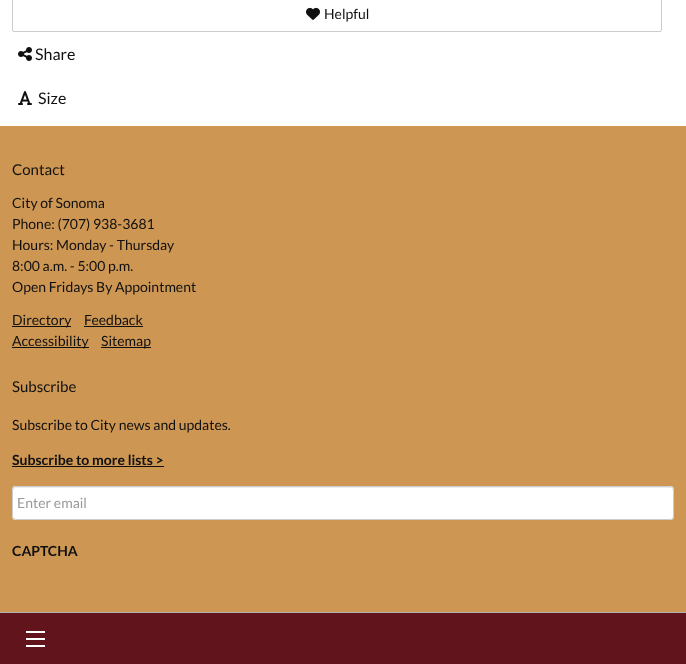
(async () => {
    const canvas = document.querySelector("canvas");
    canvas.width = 686;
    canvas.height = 664;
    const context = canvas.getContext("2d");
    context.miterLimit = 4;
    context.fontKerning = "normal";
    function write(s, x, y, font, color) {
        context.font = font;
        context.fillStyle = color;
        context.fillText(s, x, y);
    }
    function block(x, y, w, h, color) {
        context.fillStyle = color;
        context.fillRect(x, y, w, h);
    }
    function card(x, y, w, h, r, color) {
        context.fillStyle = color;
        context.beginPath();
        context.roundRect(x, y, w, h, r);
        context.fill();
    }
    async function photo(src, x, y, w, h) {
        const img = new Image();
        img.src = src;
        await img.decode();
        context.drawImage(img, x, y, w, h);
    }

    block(0, 0, 686, 664, "rgb(255, 255, 255)");
    context.beginPath();
    context.roundRect(12.5, -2.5, 649, 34, 1.5);
    context.strokeStyle = "rgb(204, 204, 204)";
    context.stroke();
    await photo("media/1.png", 306, 7, 14, 13);
    write("Helpful", 324, 19, "14px Lato", "rgb(16, 16, 16)");
    await photo("media/2.png", 18, 47, 14, 14);
    write("Share", 35, 60, "16px Lato", "rgb(16, 16, 16)");
    await photo("media/3.png", 18, 91, 14, 14);
    write("Size", 38, 104, "16px Lato", "rgb(16, 16, 16)");
    block(0, 126, 686, 486, "rgb(205, 150, 83)");
    write("Contact", 12, 175, "15px Lato", "rgb(16, 16, 16)");
    write("City of Sonoma", 12, 208, "14px Lato", "rgb(16, 16, 16)");
    write("Phone: (707) 938-3681", 12, 229, "14px Lato", "rgb(16, 16, 16)");
    write("Hours: Monday - Thursday", 12, 250, "14px Lato", "rgb(16, 16, 16)");
    write("8:00 a.m. - 5:00 p.m.", 12, 271, "14px Lato", "rgb(16, 16, 16)");
    write("Open Fridays By Appointment", 12, 292, "14px Lato", "rgb(16, 16, 16)");
    block(12, 326, 59, 1, "rgb(16, 16, 16)");
    write("Directory", 12, 325, "14px Lato", "rgb(16, 16, 16)");
    write("Feedback", 84, 325, "14px Lato", "rgb(16, 16, 16)");
    block(84, 326, 59, 1, "rgb(16, 16, 16)");
    block(12, 347, 77, 1, "rgb(16, 16, 16)");
    write("Accessibility", 12, 346, "14px Lato", "rgb(16, 16, 16)");
    block(101, 347, 50, 1, "rgb(16, 16, 16)");
    write("Sitemap", 101, 346, "14px Lato", "rgb(16, 16, 16)");
    write("Subscribe", 12, 392, "15px Lato", "rgb(16, 16, 16)");
    write("Subscribe to City news and updates.", 12, 430, "14px Lato", "rgb(16, 16, 16)");
    write("Subscribe to more lists >", 12, 465, "bold 14px Lato", "rgb(16, 16, 16)");
    block(12, 466, 152, 1, "rgb(16, 16, 16)");
    card(12, 486, 662, 34, 4, "rgb(255, 255, 255)");
    context.fillStyle = "rgb(236, 236, 236)";
    context.beginPath();
    context.moveTo(16, 488);
    context.lineTo(670, 488);
    context.bezierCurveTo(672, 488, 673, 489, 673, 491);
    context.lineTo(673, 490);
    context.bezierCurveTo(673, 488, 672, 487, 670, 487);
    context.lineTo(16, 487);
    context.bezierCurveTo(14, 487, 13, 488, 13, 490);
    context.lineTo(13, 491);
    context.bezierCurveTo(13, 489, 14, 488, 16, 488);
    context.closePath();
    context.fill();
    context.beginPath();
    context.roundRect(12.5, 486.5, 661, 33, 3.5);
    context.stroke();
    write("Enter email", 17, 508, "14px Lato", "rgb(153, 153, 153)");
    write("CAPTCHA", 12, 556, "bold 14px Lato", "rgb(16, 16, 16)");
    block(0, 613, 686, 51, "rgb(97, 20, 28)");
    block(0, 612, 686, 1, "rgb(174, 176, 181)");
    block(26, 638, 19, 2, "rgb(255, 255, 255)");
    block(26, 631, 19, 2, "rgb(255, 255, 255)");
    block(26, 645, 19, 2, "rgb(255, 255, 255)");
})();
